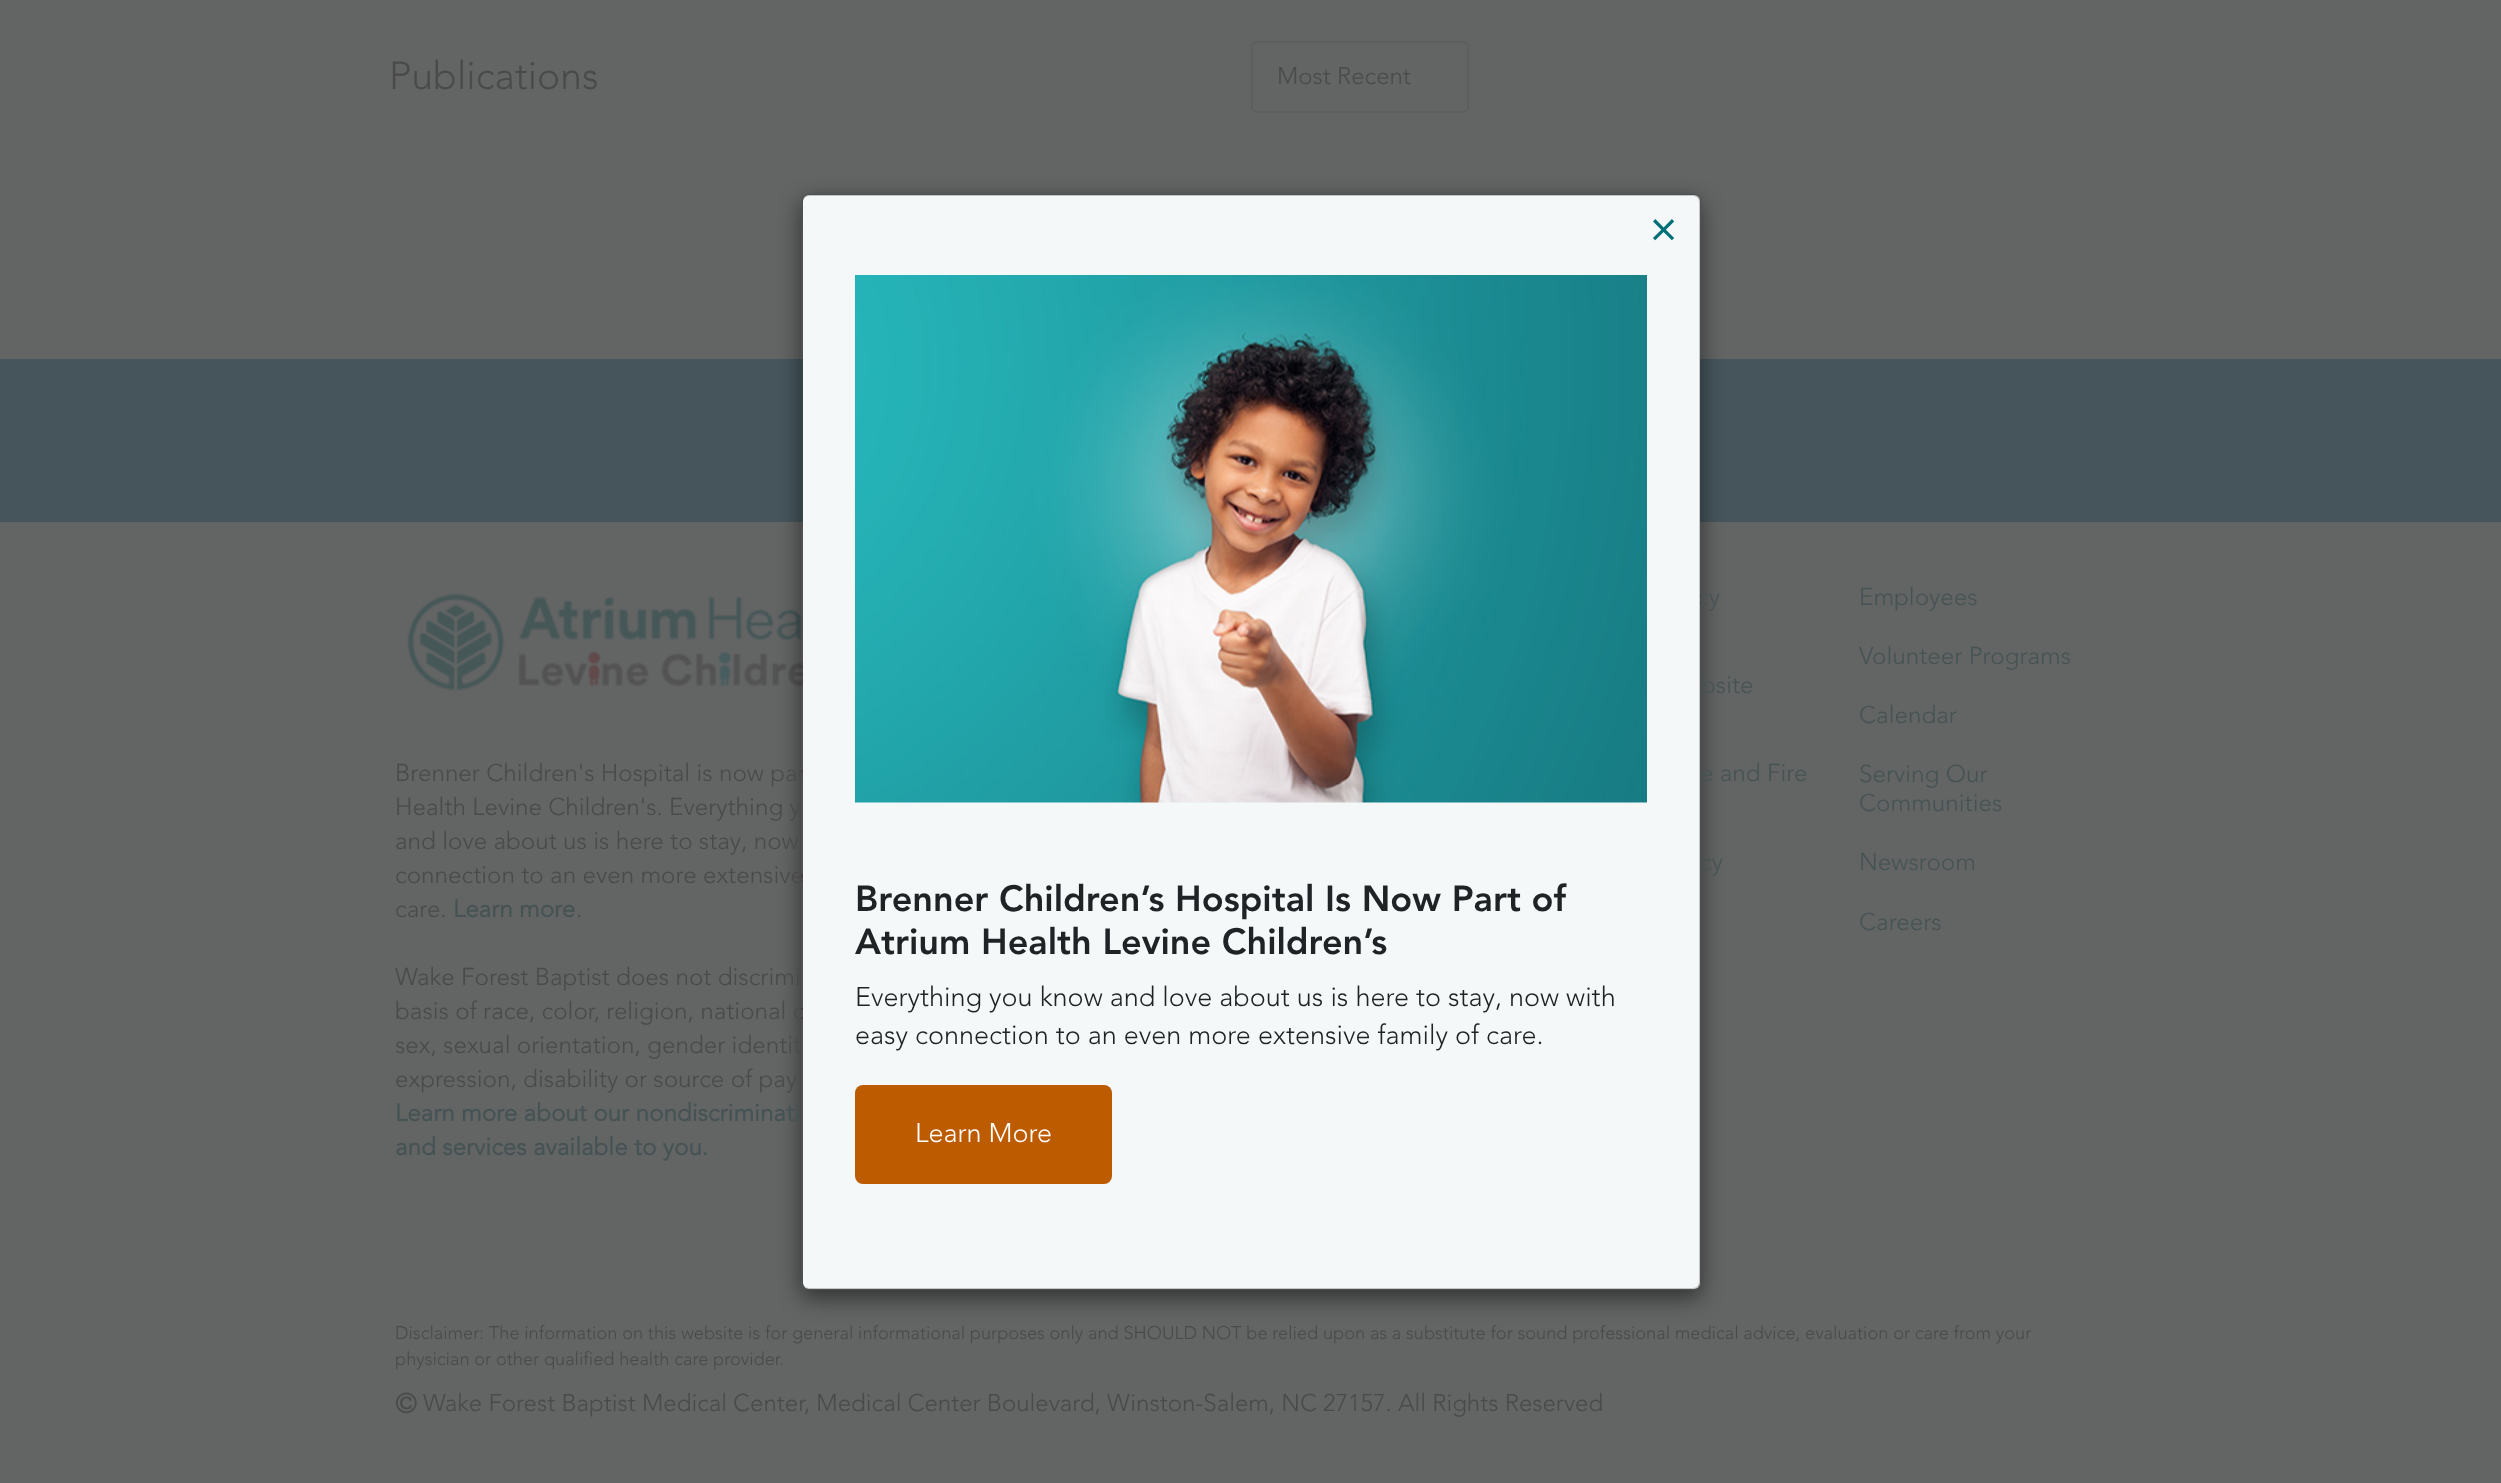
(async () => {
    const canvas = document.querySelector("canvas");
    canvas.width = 2501;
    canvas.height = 1483;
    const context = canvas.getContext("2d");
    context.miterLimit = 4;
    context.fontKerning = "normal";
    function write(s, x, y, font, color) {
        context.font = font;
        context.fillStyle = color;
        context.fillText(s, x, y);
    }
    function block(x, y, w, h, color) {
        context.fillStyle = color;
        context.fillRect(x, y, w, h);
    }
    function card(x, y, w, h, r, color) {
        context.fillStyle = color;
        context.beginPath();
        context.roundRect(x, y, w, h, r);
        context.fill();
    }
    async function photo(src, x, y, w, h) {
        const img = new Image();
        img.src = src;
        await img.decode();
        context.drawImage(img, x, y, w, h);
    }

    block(0, 0, 2501, 1483, "rgb(99, 100, 100)");
    write("Publications", 389, 89, "300 39px 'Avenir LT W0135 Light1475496'", "rgb(74, 74, 74)");
    context.beginPath();
    context.roundRect(1252, 42, 216, 70, 5);
    context.strokeStyle = "rgb(94, 94, 94)";
    context.lineWidth = 2;
    context.stroke();
    write("Most Recent", 1277, 84, "300 24px 'Avenir LT W0135 Light1475496'", "rgb(74, 74, 74)");
    block(0, 359, 2501, 163, "rgb(70, 85, 92)");
    await photo("media/2.png", 407, 593, 396, 98);
    context.save();
    context.beginPath();
    context.moveTo(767, 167);
    context.lineTo(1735, 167);
    context.lineTo(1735, 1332);
    context.lineTo(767, 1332);
    context.closePath();
    context.moveTo(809, 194);
    context.lineTo(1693, 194);
    context.bezierCurveTo(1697.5, 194, 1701, 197.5, 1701, 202);
    context.lineTo(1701, 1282);
    context.bezierCurveTo(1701, 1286.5, 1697.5, 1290, 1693, 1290);
    context.lineTo(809, 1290);
    context.bezierCurveTo(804.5, 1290, 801, 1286.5, 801, 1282);
    context.lineTo(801, 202);
    context.bezierCurveTo(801, 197.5, 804.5, 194, 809, 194);
    context.closePath();
    context.clip("evenodd");
    context.fillStyle = "rgba(0, 0, 0, 0.5)";
    context.filter = "blur(11px)";
    context.beginPath();
    context.roundRect(801, 201, 900, 1097, 8);
    context.fill();
    context.filter = "none";
    context.restore();
    write("Brenner Children's Hospital is now par", 395, 781, "300 24.25px 'Avenir LT W0135 Light1475496'", "rgb(74, 74, 74)");
    write("connection to an even more extensive", 395, 883, "300 24.25px 'Avenir LT W0135 Light1475496'", "rgb(74, 74, 74)");
    write("basis of race, color, religion, national o", 395, 1019, "300 24.25px 'Avenir LT W0135 Light1475496'", "rgb(74, 74, 74)");
    write("cy", 1697, 605, "300 24.25px 'Avenir LT W0135 Light1475496'", "rgb(70, 83, 84)");
    card(803, 195, 897, 1094, 6, "rgb(244, 248, 249)");
    write("Health Levine Children's. Everything y", 395, 815, "300 24.25px 'Avenir LT W0135 Light1475496'", "rgb(74, 74, 74)");
    write("sex, sexual orientation, gender identit", 395, 1053, "300 24.25px 'Avenir LT W0135 Light1475496'", "rgb(74, 74, 74)");
    context.beginPath();
    context.roundRect(802, 195, 898, 1094, 7);
    context.strokeStyle = "rgba(0, 0, 0, 0.2)";
    context.stroke();
    write("×", 1649, 243, "bold 42px 'Avenir LT W0135 Light1475496'", "rgb(0, 112, 120)");
    await photo("media/1.png", 855, 275, 792, 528);
    write("Brenner Children’s Hospital Is Now Part of", 855, 911, "900 36px 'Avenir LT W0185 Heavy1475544'", "rgb(31, 35, 37)");
    write("Atrium Health Levine Children’s", 855, 954, "900 36px 'Avenir LT W0185 Heavy1475544'", "rgb(31, 35, 37)");
    write("Everything you know and love about us is here to stay, now with", 855, 1006, "300 27px 'Avenir LT W0135 Light1475496'", "rgb(31, 35, 37)");
    write("easy connection to an even more extensive family of care.", 855, 1044, "300 27px 'Avenir LT W0135 Light1475496'", "rgb(31, 35, 37)");
    card(855, 1085, 257, 99, 8, "rgb(189, 91, 0)");
    write("Learn More", 915, 1142, "300 27px 'Avenir LT W0135 Light1475496'", "rgb(255, 255, 255)");
    write("and love about us is here to stay, now", 395, 849, "300 24.25px 'Avenir LT W0135 Light1475496'", "rgb(74, 74, 74)");
    write("care.", 395, 917, "300 24.25px 'Avenir LT W0135 Light1475496'", "rgb(74, 74, 74)");
    write("Learn more", 453, 917, "bold 24.25px 'Avenir LT W0135 Light1475496'", "rgb(70, 83, 84)");
    write(".", 576, 917, "300 24.25px 'Avenir LT W0135 Light1475496'", "rgb(74, 74, 74)");
    write("Wake Forest Baptist does not discrimi", 395, 985, "300 24.25px 'Avenir LT W0135 Light1475496'", "rgb(74, 74, 74)");
    write("expression, disability or source of pay", 395, 1087, "300 24.25px 'Avenir LT W0135 Light1475496'", "rgb(74, 74, 74)");
    write("Learn more about our nondiscriminati", 395, 1121, "bold 24.25px 'Avenir LT W0135 Light1475496'", "rgb(70, 83, 84)");
    write("and services available to you.", 395, 1155, "bold 24.25px 'Avenir LT W0135 Light1475496'", "rgb(70, 83, 84)");
    write("bsite", 1701, 693, "300 24.25px 'Avenir LT W0135 Light1475496'", "rgb(70, 83, 84)");
    write("e and Fire", 1700, 781, "300 24.25px 'Avenir LT W0135 Light1475496'", "rgb(70, 83, 84)");
    write("cy", 1700, 870, "300 24.25px 'Avenir LT W0135 Light1475496'", "rgb(70, 83, 84)");
    write("Employees", 1859, 605, "300 24.25px 'Avenir LT W0135 Light1475496'", "rgb(70, 83, 84)");
    write("Volunteer Programs", 1859, 664, "300 24.25px 'Avenir LT W0135 Light1475496'", "rgb(70, 83, 84)");
    write("Calendar", 1859, 723, "300 24.25px 'Avenir LT W0135 Light1475496'", "rgb(70, 83, 84)");
    write("Serving Our", 1859, 782, "300 24.25px 'Avenir LT W0135 Light1475496'", "rgb(70, 83, 84)");
    write("Communities", 1859, 811, "300 24.25px 'Avenir LT W0135 Light1475496'", "rgb(70, 83, 84)");
    write("Newsroom", 1859, 870, "300 24.25px 'Avenir LT W0135 Light1475496'", "rgb(70, 83, 84)");
    write("Careers", 1859, 930, "300 24.25px 'Avenir LT W0135 Light1475496'", "rgb(70, 83, 84)");
    write("Disclaimer: The information on this website is for general informational purposes only and SHOULD NOT be relied upon as a substitute for sound professional medical advice, evaluation or care from your", 395, 1339, "300 18.23px 'Avenir LT W0135 Light1475496'", "rgb(74, 74, 74)");
    write("physician or other qualified health care provider.", 395, 1365, "300 18.23px 'Avenir LT W0135 Light1475496'", "rgb(74, 74, 74)");
    await photo("media/3.png", 396, 1392, 21, 22);
    context.wordSpacing = "-0.1px";
    write("Wake Forest Baptist Medical Center, Medical Center Boulevard, Winston-Salem, NC 27157. All Rights Reserved", 423, 1411, "300 24.05px 'Avenir LT W0135 Light1475496'", "rgb(74, 74, 74)");
})();
